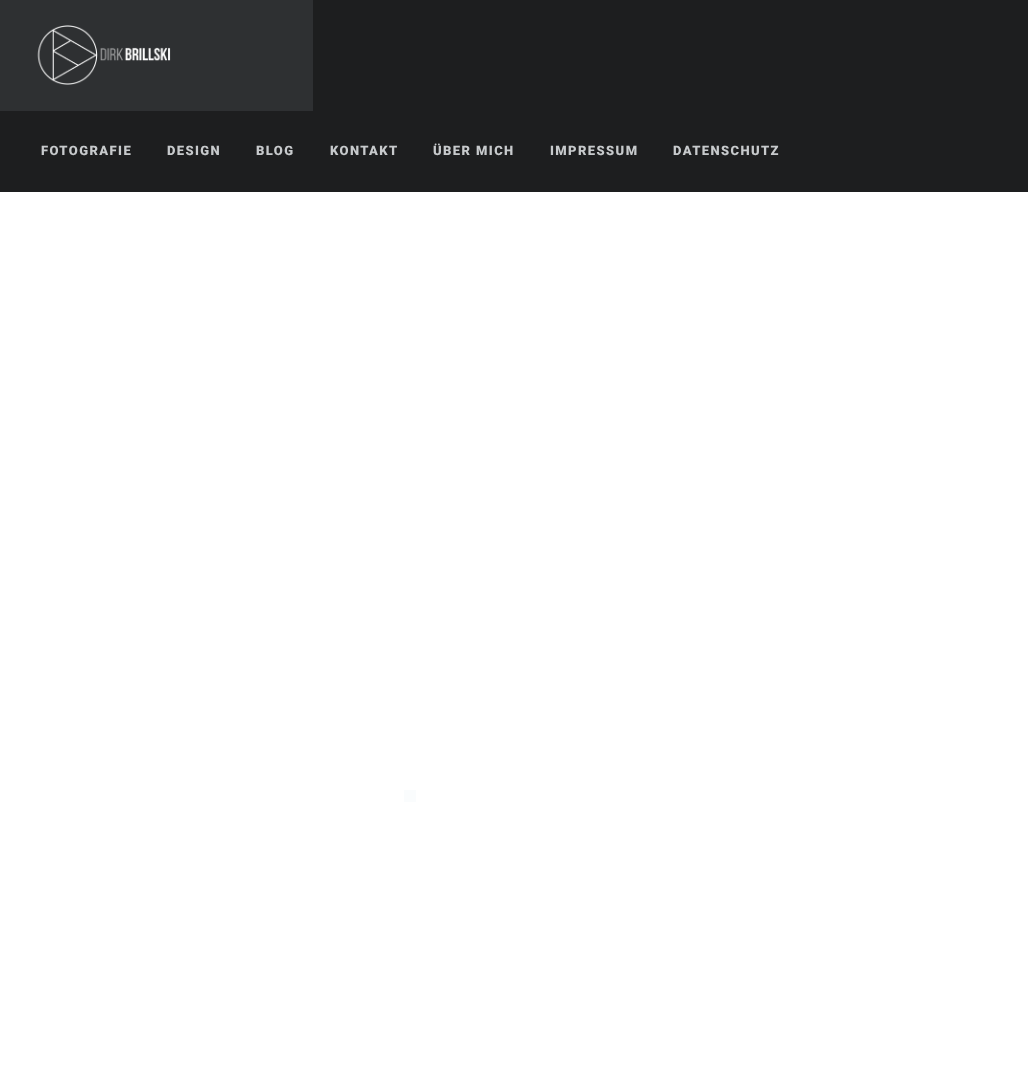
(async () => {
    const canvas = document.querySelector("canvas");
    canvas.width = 1028;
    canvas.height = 1091;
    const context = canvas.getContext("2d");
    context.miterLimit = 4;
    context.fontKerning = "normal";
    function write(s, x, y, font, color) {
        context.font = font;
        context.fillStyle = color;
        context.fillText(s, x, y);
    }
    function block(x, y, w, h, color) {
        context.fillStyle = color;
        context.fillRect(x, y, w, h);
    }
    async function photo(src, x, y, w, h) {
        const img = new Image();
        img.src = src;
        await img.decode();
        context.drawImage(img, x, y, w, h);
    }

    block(0, 0, 1028, 1091, "rgb(255, 255, 255)");
    block(0, 0, 1028, 192, "rgb(29, 30, 31)");
    block(0, 0, 313, 111, "rgb(46, 48, 50)");
    await photo("media/1.png", 37, 25, 134, 60);
    context.letterSpacing = "1.4px";
    write("FOTOGRAFIE", 41, 155, "900 13px Roboto", "rgb(199, 202, 204)");
    write("DESIGN", 167, 155, "900 13px Roboto", "rgb(199, 202, 204)");
    write("BLOG", 256, 155, "900 13px Roboto", "rgb(199, 202, 204)");
    write("KONTAKT", 330, 155, "900 13px Roboto", "rgb(199, 202, 204)");
    write("ÜBER MICH", 433, 155, "900 13px Roboto", "rgb(199, 202, 204)");
    write("IMPRESSUM", 550, 155, "900 13px Roboto", "rgb(199, 202, 204)");
    write("DATENSCHUTZ", 673, 155, "900 13px Roboto", "rgb(199, 202, 204)");
    block(404, 790, 12, 12, "rgb(250, 252, 253)");
})();
